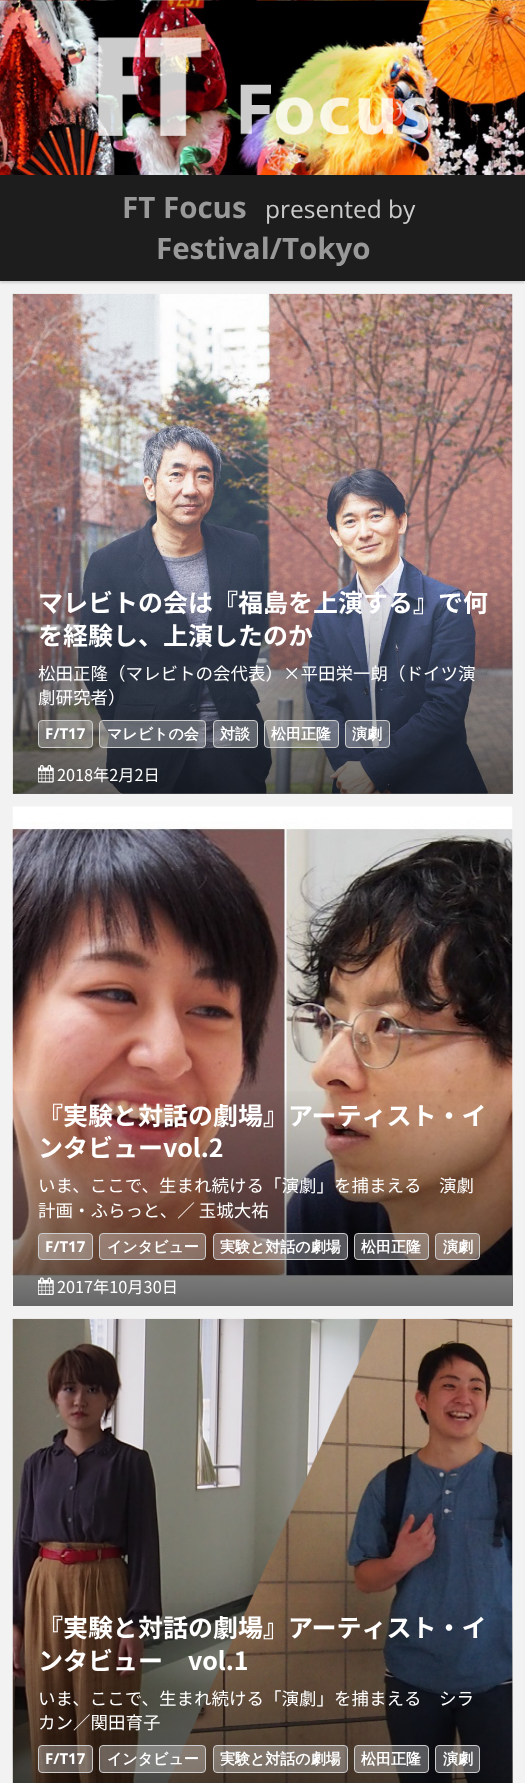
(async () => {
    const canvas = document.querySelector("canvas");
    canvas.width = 525;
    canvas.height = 1783;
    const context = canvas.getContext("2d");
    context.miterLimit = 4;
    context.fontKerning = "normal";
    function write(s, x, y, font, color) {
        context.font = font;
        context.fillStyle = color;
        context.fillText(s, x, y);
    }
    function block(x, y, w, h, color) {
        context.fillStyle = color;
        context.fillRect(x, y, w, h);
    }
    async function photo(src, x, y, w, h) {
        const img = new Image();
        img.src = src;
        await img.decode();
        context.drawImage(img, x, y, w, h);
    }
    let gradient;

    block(0, 0, 525, 1783, "rgb(255, 255, 255)");
    await photo("media/1.png", 0, 0, 525, 175);
    await photo("media/2.png", 98, 37, 331, 99);
    block(0, 281, 525, 1502, "rgb(242, 242, 242)");
    context.fillStyle = "rgba(0, 0, 0, 0.15)";
    context.filter = "blur(1px)";
    context.beginPath();
    context.rect(0, 176, 525, 107);
    context.fill();
    context.filter = "none";
    block(0, 175, 525, 106, "rgb(29, 29, 29)");
    write("FT Focus", 122, 218, "bold 29.5px Open Sans", "rgb(153, 153, 153)");
    write("presented by", 265, 218, "24.5px Open Sans", "rgb(204, 204, 204)");
    write("Festival/Tokyo", 156, 259, "bold 29.5px Open Sans", "rgb(153, 153, 153)");
    await photo("media/3.png", 12, 293, 501, 501);
    gradient = context.createLinearGradient(263, 794, 263, 570);
    gradient.addColorStop(0, "rgba(0, 0, 0, 0.6)");
    gradient.addColorStop(1, "rgba(0, 0, 0, 0)");
    context.fillStyle = gradient;
    context.fillRect(13, 578, 500, 216);
    write("マレビトの会は『福島を上演する』で何", 38, 612, "bold 25px Noto Sans JP", "rgb(255, 255, 255)");
    write("を経験し、上演したのか", 38, 645, "bold 25px Noto Sans JP", "rgb(255, 255, 255)");
    write("松田正隆（マレビトの会代表）×平田栄一朗（ドイツ演", 38, 680, "17.5px Noto Sans JP", "rgb(255, 255, 255)");
    write("劇研究者）", 38, 704, "17.5px Noto Sans JP", "rgb(255, 255, 255)");
    context.fillStyle = "rgba(255, 255, 255, 0.3)";
    context.beginPath();
    context.roundRect(38.5, 720.5, 54, 27, 3.5);
    context.fill();
    context.strokeStyle = "rgb(204, 204, 204)";
    context.stroke();
    write("F/T17", 45, 739, "bold 15px Open Sans", "rgb(255, 255, 255)");
    context.fillStyle = "rgba(255, 255, 255, 0.3)";
    context.beginPath();
    context.roundRect(99.5, 720.5, 106, 27, 3.5);
    context.fill();
    context.stroke();
    write("マレビトの会", 107, 739, "bold 15px WenQuanYi Zen Hei", "rgb(255, 255, 255)");
    context.fillStyle = "rgba(255, 255, 255, 0.3)";
    context.beginPath();
    context.roundRect(213.5, 720.5, 44, 27, 3.5);
    context.fill();
    context.stroke();
    write("対談", 220, 739, "bold 15px WenQuanYi Zen Hei", "rgb(255, 255, 255)");
    context.fillStyle = "rgba(255, 255, 255, 0.3)";
    context.beginPath();
    context.roundRect(264.5, 720.5, 74, 27, 3.5);
    context.fill();
    context.stroke();
    write("松田正隆", 271, 739, "bold 15px WenQuanYi Zen Hei", "rgb(255, 255, 255)");
    context.fillStyle = "rgba(255, 255, 255, 0.3)";
    context.beginPath();
    context.roundRect(345.5, 720.5, 44, 27, 3.5);
    context.fill();
    context.stroke();
    write("演劇", 352, 739, "bold 15px WenQuanYi Zen Hei", "rgb(255, 255, 255)");
    await photo("media/4.png", 38, 765, 16, 18);
    write("2018年2月2日", 57, 781, "16.25px Noto Sans JP", "rgb(255, 255, 255)");
    await photo("media/5.png", 12, 806, 501, 500);
    gradient = context.createLinearGradient(263, 1306, 263, 1083);
    gradient.addColorStop(0, "rgba(0, 0, 0, 0.6)");
    gradient.addColorStop(1, "rgba(0, 0, 0, 0)");
    context.fillStyle = gradient;
    context.fillRect(13, 1091, 500, 215);
    write("『実験と対話の劇場』アーティスト・イ", 38, 1125, "bold 25px Noto Sans JP", "rgb(255, 255, 255)");
    write("ンタビューvol.2", 38, 1157, "bold 25px Noto Sans JP", "rgb(255, 255, 255)");
    write("いま、ここで、生まれ続ける「演劇」を捕まえる　演劇", 38, 1192, "17.5px Noto Sans JP", "rgb(255, 255, 255)");
    write("計画・ふらっと、／ 玉城大祐", 38, 1217, "17.5px Noto Sans JP", "rgb(255, 255, 255)");
    context.fillStyle = "rgba(255, 255, 255, 0.3)";
    context.beginPath();
    context.roundRect(38.5, 1233.5, 54, 26, 3.5);
    context.fill();
    context.stroke();
    write("F/T17", 45, 1252, "bold 15px Open Sans", "rgb(255, 255, 255)");
    context.fillStyle = "rgba(255, 255, 255, 0.3)";
    context.beginPath();
    context.roundRect(99.5, 1233.5, 106, 26, 3.5);
    context.fill();
    context.stroke();
    write("インタビュー", 107, 1252, "bold 15px WenQuanYi Zen Hei", "rgb(255, 255, 255)");
    context.fillStyle = "rgba(255, 255, 255, 0.3)";
    context.beginPath();
    context.roundRect(213.5, 1233.5, 134, 26, 3.5);
    context.fill();
    context.stroke();
    write("実験と対話の劇場", 220, 1252, "bold 15px WenQuanYi Zen Hei", "rgb(255, 255, 255)");
    context.fillStyle = "rgba(255, 255, 255, 0.3)";
    context.beginPath();
    context.roundRect(354.5, 1233.5, 74, 26, 3.5);
    context.fill();
    context.stroke();
    write("松田正隆", 361, 1252, "bold 15px WenQuanYi Zen Hei", "rgb(255, 255, 255)");
    context.fillStyle = "rgba(255, 255, 255, 0.3)";
    context.beginPath();
    context.roundRect(435.5, 1233.5, 44, 26, 3.5);
    context.fill();
    context.stroke();
    write("演劇", 443, 1252, "bold 15px WenQuanYi Zen Hei", "rgb(255, 255, 255)");
    await photo("media/6.png", 38, 1277, 16, 18);
    write("2017年10月30日", 57, 1293, "16.25px Noto Sans JP", "rgb(255, 255, 255)");
    await photo("media/7.png", 12, 1318, 501, 465);
    gradient = context.createLinearGradient(263, 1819, 263, 1595);
    gradient.addColorStop(0, "rgba(0, 0, 0, 0.6)");
    gradient.addColorStop(1, "rgba(0, 0, 0, 0)");
    context.fillStyle = gradient;
    context.fillRect(13, 1603, 500, 180);
    write("『実験と対話の劇場』アーティスト・イ", 38, 1637, "bold 25px Noto Sans JP", "rgb(255, 255, 255)");
    write("ンタビュー　vol.1", 38, 1670, "bold 25px Noto Sans JP", "rgb(255, 255, 255)");
    write("いま、ここで、生まれ続ける「演劇」を捕まえる　シラ", 38, 1705, "17.5px Noto Sans JP", "rgb(255, 255, 255)");
    write("カン／関田育子", 38, 1729, "17.5px Noto Sans JP", "rgb(255, 255, 255)");
    context.fillStyle = "rgba(255, 255, 255, 0.3)";
    context.beginPath();
    context.roundRect(38.5, 1745.5, 54, 27, 3.5);
    context.fill();
    context.stroke();
    write("F/T17", 45, 1764, "bold 15px Open Sans", "rgb(255, 255, 255)");
    context.fillStyle = "rgba(255, 255, 255, 0.3)";
    context.beginPath();
    context.roundRect(99.5, 1745.5, 106, 27, 3.5);
    context.fill();
    context.stroke();
    write("インタビュー", 107, 1764, "bold 15px WenQuanYi Zen Hei", "rgb(255, 255, 255)");
    context.fillStyle = "rgba(255, 255, 255, 0.3)";
    context.beginPath();
    context.roundRect(213.5, 1745.5, 134, 27, 3.5);
    context.fill();
    context.stroke();
    write("実験と対話の劇場", 220, 1764, "bold 15px WenQuanYi Zen Hei", "rgb(255, 255, 255)");
    context.fillStyle = "rgba(255, 255, 255, 0.3)";
    context.beginPath();
    context.roundRect(354.5, 1745.5, 74, 27, 3.5);
    context.fill();
    context.stroke();
    write("松田正隆", 361, 1764, "bold 15px WenQuanYi Zen Hei", "rgb(255, 255, 255)");
    context.fillStyle = "rgba(255, 255, 255, 0.3)";
    context.beginPath();
    context.roundRect(435.5, 1745.5, 44, 27, 3.5);
    context.fill();
    context.stroke();
    write("演劇", 443, 1764, "bold 15px WenQuanYi Zen Hei", "rgb(255, 255, 255)");
})();
